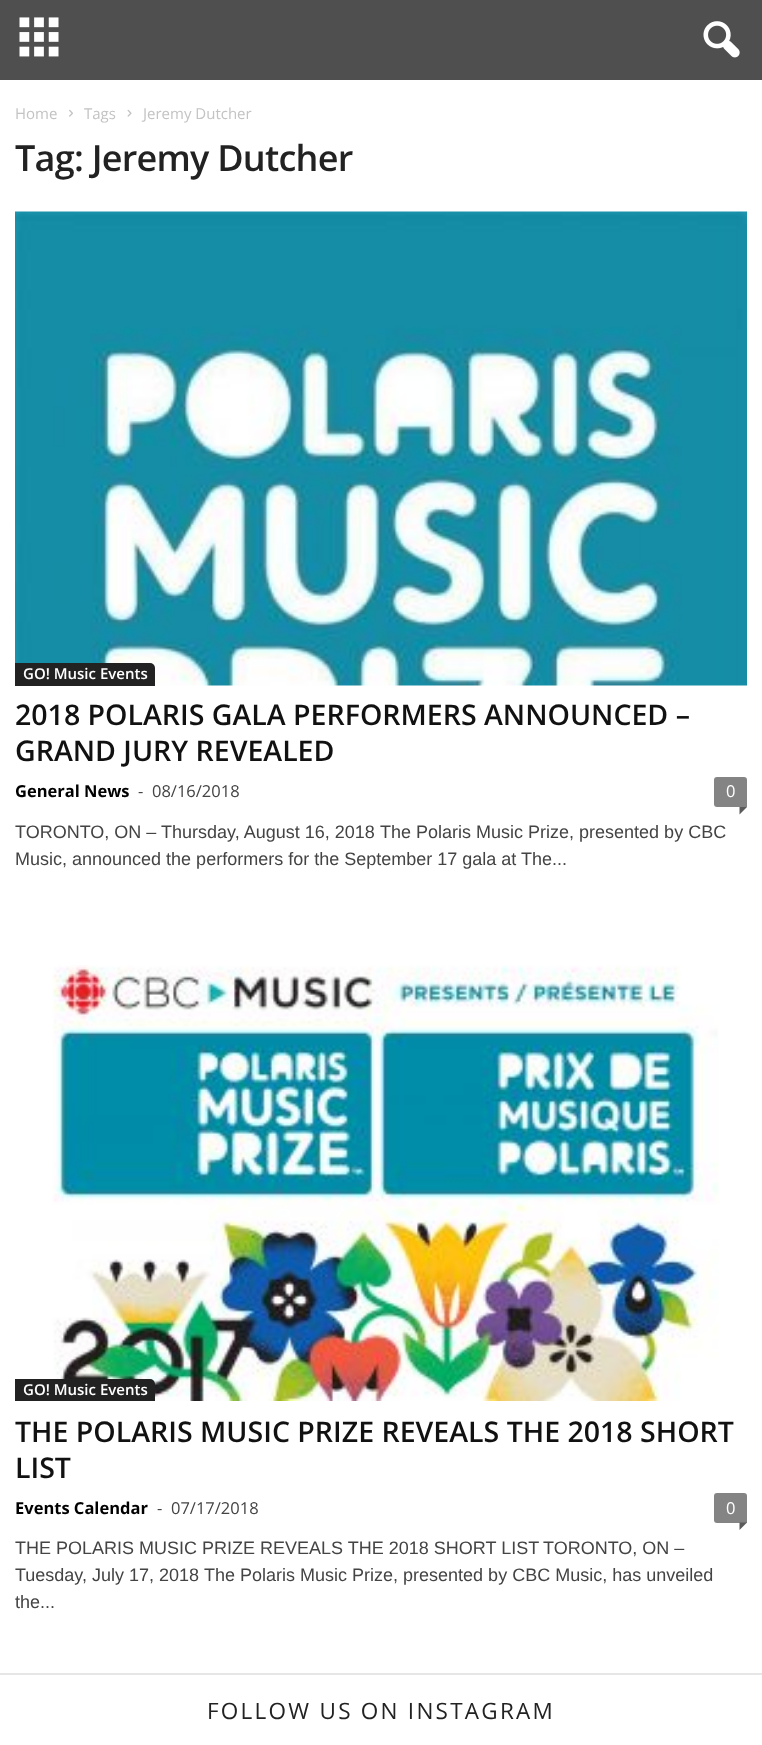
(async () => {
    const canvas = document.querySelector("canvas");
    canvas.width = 762;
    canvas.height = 1745;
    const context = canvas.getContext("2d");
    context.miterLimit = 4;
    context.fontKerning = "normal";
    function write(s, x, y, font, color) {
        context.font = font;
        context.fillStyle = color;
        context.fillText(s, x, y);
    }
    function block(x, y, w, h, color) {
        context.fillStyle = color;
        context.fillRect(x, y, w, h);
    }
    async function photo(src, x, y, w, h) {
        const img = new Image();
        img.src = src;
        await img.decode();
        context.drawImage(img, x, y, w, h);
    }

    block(0, 0, 762, 1745, "rgb(255, 255, 255)");
    block(0, 0, 762, 80, "rgb(79, 79, 79)");
    await photo("media/1.png", 19, 17, 40, 40);
    await photo("media/2.png", 703, 21, 37, 37);
    block(0, 1673, 762, 2, "rgb(230, 230, 230)");
    write("Home", 15, 119, "15px Open Sans", "rgb(195, 195, 195)");
    await photo("media/3.png", 69, 109, 4, 8);
    write("Tags", 84, 119, "15px Open Sans", "rgb(195, 195, 195)");
    await photo("media/4.png", 127, 109, 5, 8);
    write("Jeremy Dutcher", 143, 119, "15px Open Sans", "rgb(195, 195, 195)");
    context.letterSpacing = "-0.75px";
    write("Tag: Jeremy Dutcher", 15, 171, "600 36px Open Sans", "rgb(34, 34, 34)");
    await photo("media/5.png", 15, 211, 732, 475);
    context.beginPath();
    context.roundRect(15, 663, 140, 23, [0, 5, 0, 0]);
    context.fill();
    context.letterSpacing = "0px";
    write("GO! Music Events", 23, 679, "600 15px Open Sans", "rgb(255, 255, 255)");
    write("2018 POLARIS GALA PERFORMERS ANNOUNCED –", 15, 725, "600 28.5px Open Sans", "rgb(17, 17, 17)");
    write("GRAND JURY REVEALED", 15, 761, "600 28.5px Open Sans", "rgb(17, 17, 17)");
    write("General News", 15, 797, "bold 16.5px Open Sans", "rgb(0, 0, 0)");
    write("-", 138, 797, "16.5px Open Sans", "rgb(68, 68, 68)");
    write("08/16/2018", 152, 797, "16.5px Open Sans", "rgb(68, 68, 68)");
    context.fillStyle = "rgb(132, 132, 132)";
    context.beginPath();
    context.roundRect(714, 777, 33, 30, [3, 3, 0, 3]);
    context.fill();
    write("0", 726, 797, "16.5px Open Sans", "rgb(255, 255, 255)");
    context.fillStyle = "rgb(91, 91, 91)";
    context.beginPath();
    context.moveTo(739.5, 807);
    context.lineTo(747, 807);
    context.lineTo(739.5, 814.5);
    context.closePath();
    context.fill();
    write("TORONTO, ON – Thursday, August 16, 2018", 15, 838, "18px Liberation Sans", "rgb(68, 68, 68)");
    write("The Polaris Music Prize, presented by CBC", 380, 838, "18px Liberation Sans", "rgb(68, 68, 68)");
    write("Music, announced the performers for the September 17 gala at The...", 15, 865, "18px Liberation Sans", "rgb(68, 68, 68)");
    await photo("media/6.png", 52, 965, 667, 436);
    context.fillStyle = "rgb(34, 34, 34)";
    context.beginPath();
    context.roundRect(15, 1379, 140, 22, [0, 5, 0, 0]);
    context.fill();
    write("GO! Music Events", 23, 1395, "600 15px Open Sans", "rgb(255, 255, 255)");
    write("THE POLARIS MUSIC PRIZE REVEALS THE 2018 SHORT", 15, 1442, "600 28.5px Open Sans", "rgb(17, 17, 17)");
    write("LIST", 15, 1478, "600 28.5px Open Sans", "rgb(17, 17, 17)");
    write("Events Calendar", 15, 1514, "bold 16.5px Open Sans", "rgb(0, 0, 0)");
    write("-", 157, 1514, "16.5px Open Sans", "rgb(68, 68, 68)");
    write("07/17/2018", 171, 1514, "16.5px Open Sans", "rgb(68, 68, 68)");
    context.fillStyle = "rgb(132, 132, 132)";
    context.beginPath();
    context.roundRect(714, 1493, 33, 30, [3, 3, 0, 3]);
    context.fill();
    write("0", 726, 1514, "16.5px Open Sans", "rgb(255, 255, 255)");
    context.fillStyle = "rgb(91, 91, 91)";
    context.beginPath();
    context.moveTo(739.5, 1522.5);
    context.lineTo(747, 1522.5);
    context.lineTo(739.5, 1530);
    context.closePath();
    context.fill();
    write("THE POLARIS MUSIC PRIZE REVEALS THE 2018 SHORT LIST", 15, 1554, "18px Liberation Sans", "rgb(68, 68, 68)");
    write("TORONTO, ON –", 543, 1554, "18px Liberation Sans", "rgb(68, 68, 68)");
    write("Tuesday, July 17, 2018", 15, 1581, "18px Liberation Sans", "rgb(68, 68, 68)");
    write("The Polaris Music Prize, presented by CBC Music, has unveiled", 204, 1581, "18px Liberation Sans", "rgb(68, 68, 68)");
    write("the...", 15, 1608, "18px Liberation Sans", "rgb(68, 68, 68)");
    context.letterSpacing = "2.25px";
    write("FOLLOW US ON INSTAGRAM", 207, 1719, "22.5px Open Sans", "rgb(34, 34, 34)");
})();
